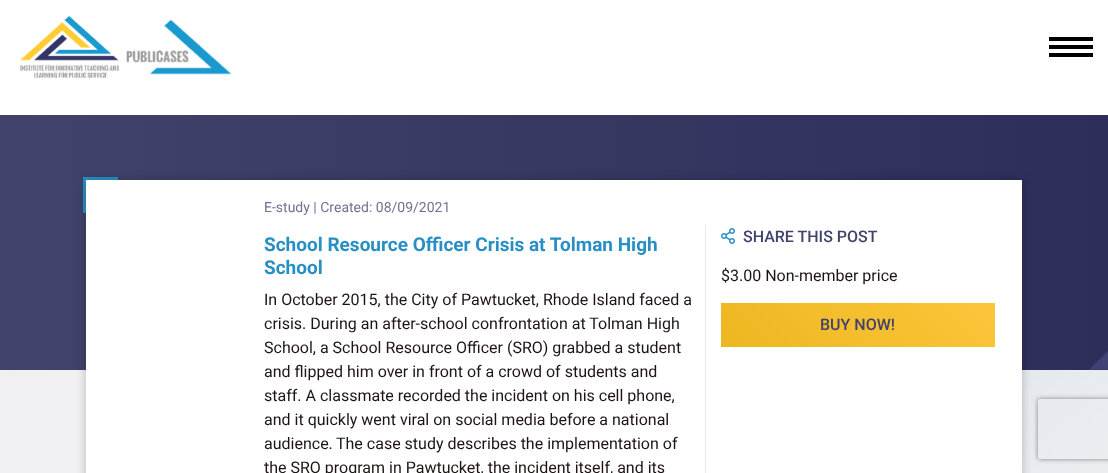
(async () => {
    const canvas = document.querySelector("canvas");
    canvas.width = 1108;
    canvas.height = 473;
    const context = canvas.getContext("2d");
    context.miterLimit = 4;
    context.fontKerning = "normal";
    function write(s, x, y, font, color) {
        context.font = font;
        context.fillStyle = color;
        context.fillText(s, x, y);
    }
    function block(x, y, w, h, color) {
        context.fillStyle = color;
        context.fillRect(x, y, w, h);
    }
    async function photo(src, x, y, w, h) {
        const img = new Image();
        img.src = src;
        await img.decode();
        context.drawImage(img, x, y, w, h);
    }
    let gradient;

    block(0, 0, 1108, 473, "rgb(240, 240, 242)");
    block(0, 0, 1108, 115, "rgb(255, 255, 255)");
    await photo("media/1.png", 20, 16, 212, 62);
    block(1049, 37, 44, 4, "rgb(0, 0, 0)");
    block(1049, 45, 44, 4, "rgb(0, 0, 0)");
    block(1049, 53, 44, 4, "rgb(0, 0, 0)");
    gradient = context.createLinearGradient(0, 185, 1108, 185);
    gradient.addColorStop(0, "rgb(66, 67, 107)");
    gradient.addColorStop(1, "rgb(45, 46, 90)");
    context.fillStyle = gradient;
    context.fillRect(0, 115, 1108, 255);
    await photo("media/2.png", 1089, 351, 19, 19);
    block(83, 177, 35, 36, "rgb(40, 143, 197)");
    context.save();
    context.beginPath();
    context.moveTo(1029, 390);
    context.lineTo(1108, 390);
    context.lineTo(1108, 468);
    context.lineTo(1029, 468);
    context.closePath();
    context.moveTo(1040, 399);
    context.lineTo(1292, 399);
    context.bezierCurveTo(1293, 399, 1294, 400, 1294, 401);
    context.lineTo(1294, 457);
    context.bezierCurveTo(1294, 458, 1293, 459, 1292, 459);
    context.lineTo(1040, 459);
    context.bezierCurveTo(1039, 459, 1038, 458, 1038, 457);
    context.lineTo(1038, 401);
    context.bezierCurveTo(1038, 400, 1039, 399, 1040, 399);
    context.closePath();
    context.clip("evenodd");
    context.fillStyle = "rgb(128, 128, 128)";
    context.filter = "blur(2.5px)";
    context.beginPath();
    context.roundRect(1038, 399, 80, 60, 2);
    context.fill();
    context.filter = "none";
    context.restore();
    await photo("media/4.png", 1022, 370, 86, 103);
    context.fillStyle = "rgba(0, 0, 0, 0.23)";
    context.filter = "blur(5px)";
    context.beginPath();
    context.rect(86, 180, 936, 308);
    context.fill();
    context.filter = "none";
    block(86, 180, 936, 293, "rgb(255, 255, 255)");
    write("E-study | Created: 08/09/2021", 264, 212, "14px Roboto", "rgb(113, 114, 144)");
    write("School Resource Officer Crisis at Tolman High", 264, 251, "bold 19px Roboto", "rgb(40, 143, 197)");
    write("School", 264, 274, "bold 19px Roboto", "rgb(40, 143, 197)");
    write("In October 2015, the City of Pawtucket, Rhode Island faced a", 264, 305, "16px Roboto", "rgb(30, 20, 21)");
    write("crisis. During an after-school confrontation at Tolman High", 264, 329, "16px Roboto", "rgb(30, 20, 21)");
    write("School, a School Resource Officer (SRO) grabbed a student", 264, 353, "16px Roboto", "rgb(30, 20, 21)");
    write("and flipped him over in front of a crowd of students and", 264, 377, "16px Roboto", "rgb(30, 20, 21)");
    write("staff. A classmate recorded the incident on his cell phone,", 264, 401, "16px Roboto", "rgb(30, 20, 21)");
    write("and it quickly went viral on social media before a national", 264, 425, "16px Roboto", "rgb(30, 20, 21)");
    write("audience.", 264, 449, "16px Roboto", "rgb(30, 20, 21)");
    write("The case study describes the implementation of", 336, 449, "16px Roboto", "rgb(30, 20, 21)");
    write("the SRO program in Pawtucket, the incident itself, and its", 264, 473, "16px Roboto", "rgb(30, 20, 21)");
    block(705, 225, 1, 248, "rgb(232, 232, 234)");
    await photo("media/3.png", 721, 228, 14, 16);
    write("SHARE THIS POST", 743, 242, "500 16px Roboto", "rgb(66, 67, 107)");
    write("$3.00 Non-member price", 721, 281, "16px Roboto", "rgb(30, 20, 21)");
    gradient = context.createLinearGradient(779, 405, 938, 246);
    gradient.addColorStop(0, "rgb(237, 183, 33)");
    gradient.addColorStop(1, "rgb(252, 197, 58)");
    context.fillStyle = gradient;
    context.fillRect(721, 303, 274, 44);
    write("BUY NOW!", 820, 330, "500 16px Roboto", "rgb(66, 67, 107)");
})();
